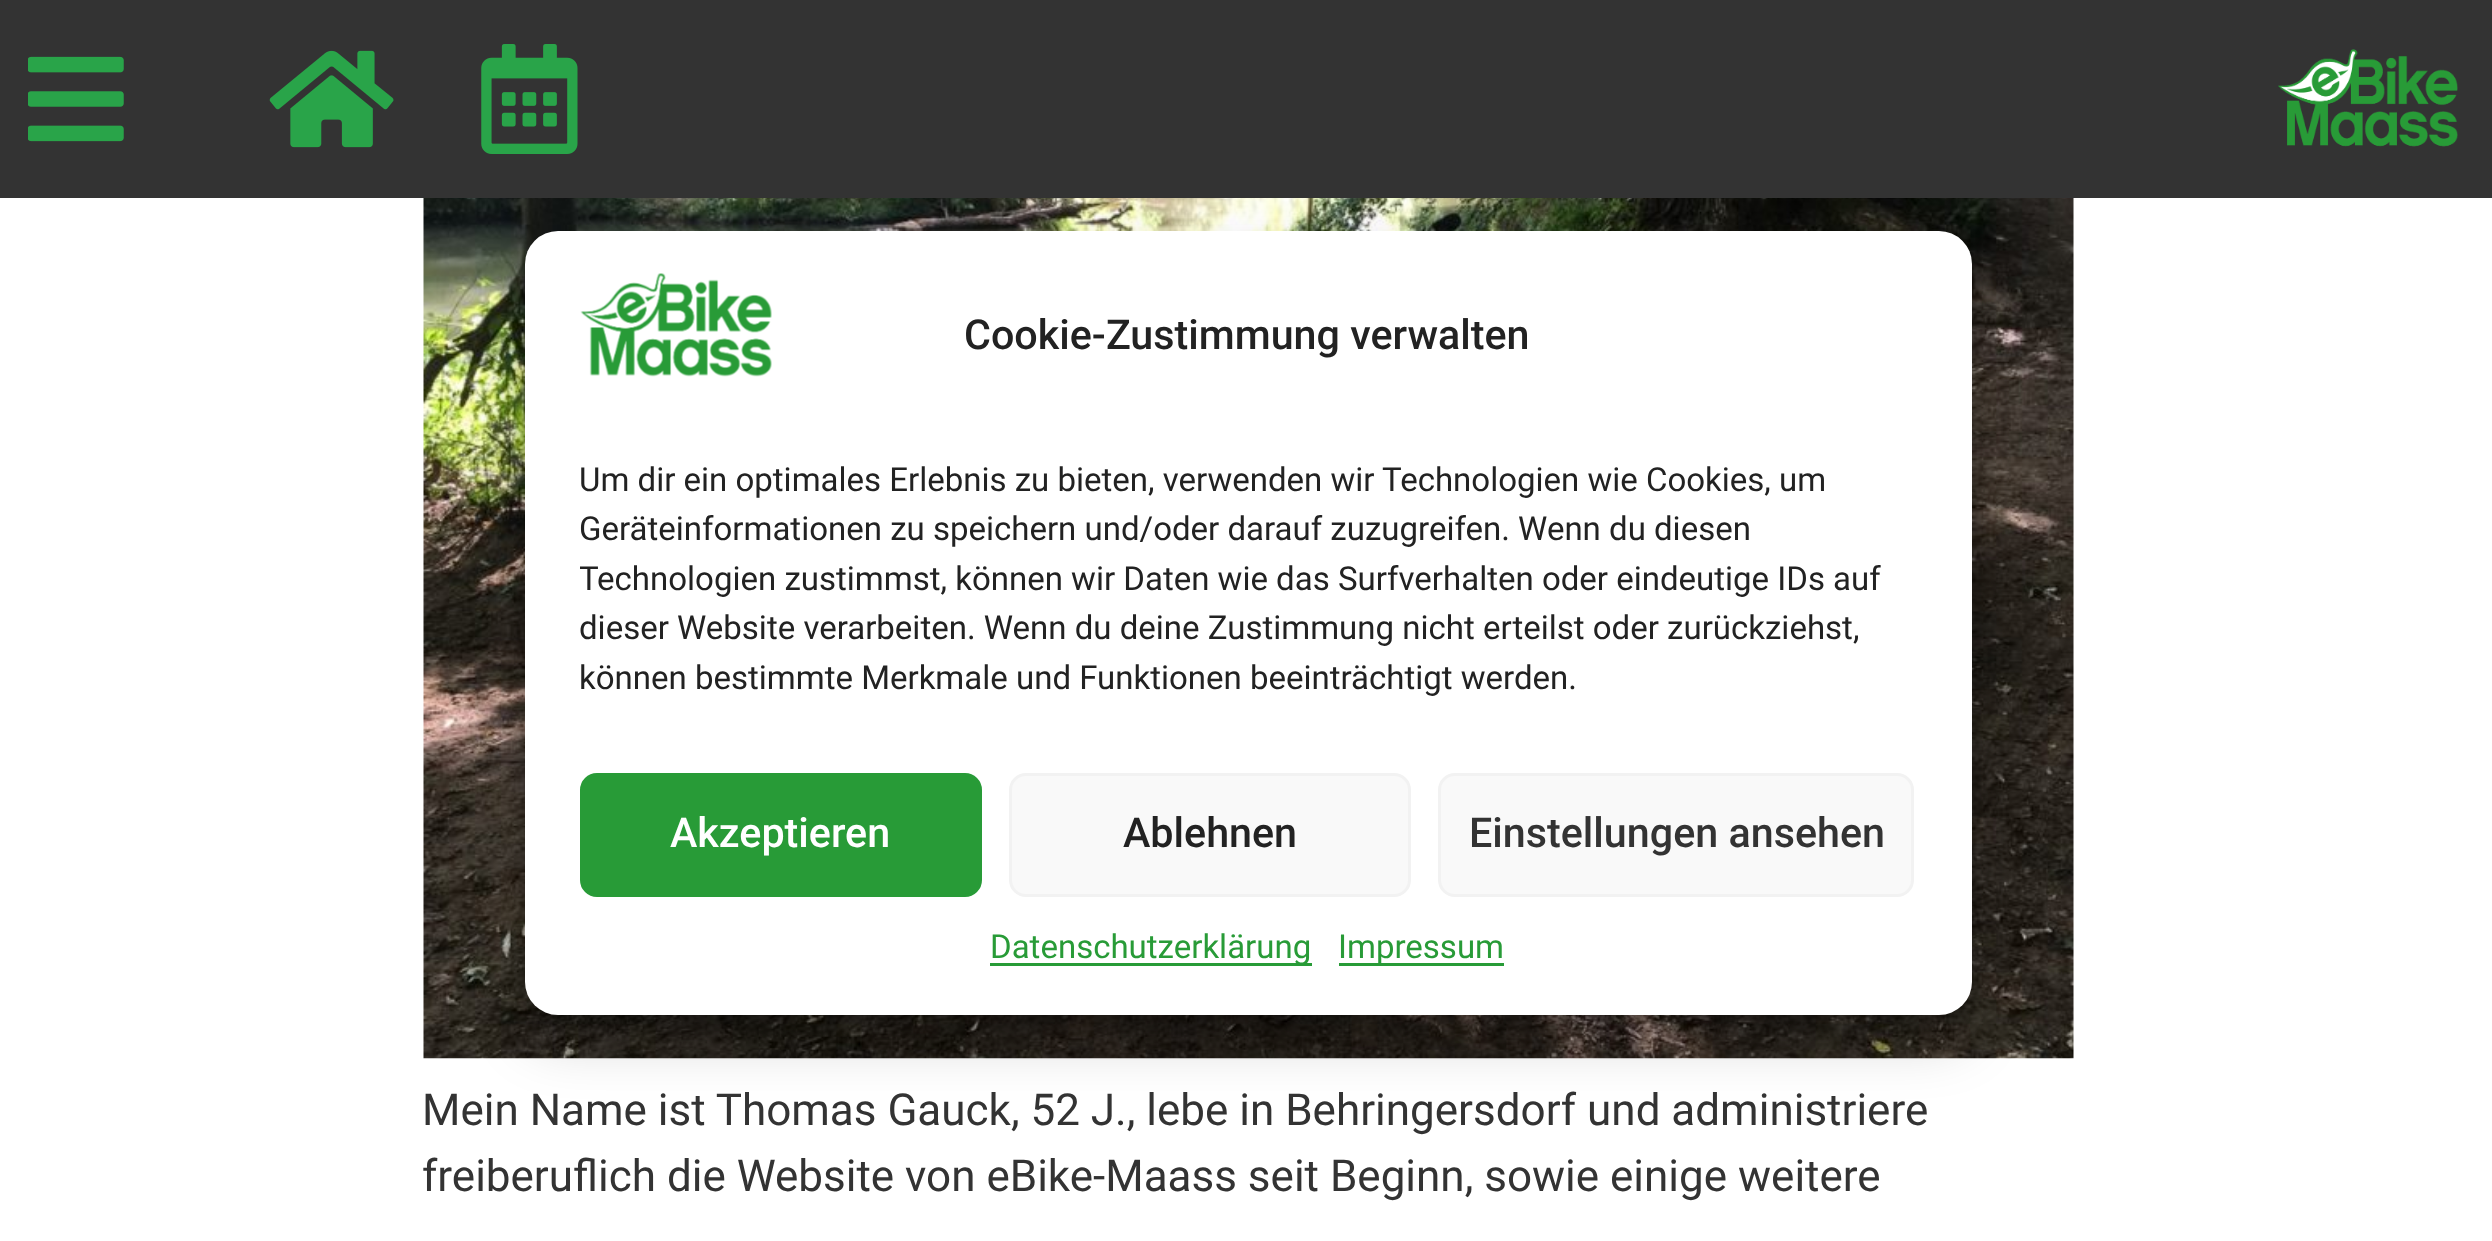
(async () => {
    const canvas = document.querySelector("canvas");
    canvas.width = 2492;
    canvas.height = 1241;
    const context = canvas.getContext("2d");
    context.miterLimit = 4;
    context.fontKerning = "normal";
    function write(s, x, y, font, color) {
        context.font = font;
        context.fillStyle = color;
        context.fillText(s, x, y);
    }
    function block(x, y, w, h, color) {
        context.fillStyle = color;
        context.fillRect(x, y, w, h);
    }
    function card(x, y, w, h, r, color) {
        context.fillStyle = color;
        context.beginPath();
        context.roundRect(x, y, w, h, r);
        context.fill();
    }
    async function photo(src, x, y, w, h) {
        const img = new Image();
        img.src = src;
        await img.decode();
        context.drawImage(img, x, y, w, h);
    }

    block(0, 0, 2492, 1241, "rgb(255, 255, 255)");
    block(0, 0, 2492, 198, "rgb(51, 51, 51)");
    await photo("media/1.png", 28, 56, 96, 86);
    await photo("media/2.png", 269, 50, 125, 98);
    await photo("media/3.png", 481, 44, 97, 110);
    await photo("media/4.png", 2278, 49, 180, 98);
    await photo("media/6.png", 423, 198, 1651, 861);
    context.fillStyle = "rgba(0, 0, 0, 0.23)";
    context.filter = "blur(8px)";
    context.beginPath();
    context.roundRect(525, 248, 1447, 783, 33);
    context.fill();
    context.filter = "none";
    context.fillStyle = "rgba(0, 0, 0, 0.19)";
    context.filter = "blur(27.5px)";
    context.beginPath();
    context.roundRect(525, 259, 1447, 783, 33);
    context.fill();
    context.filter = "none";
    card(525, 231, 1447, 784, 33, "rgb(255, 255, 255)");
    await photo("media/5.png", 580, 273, 192, 104);
    write("Cookie-Zustimmung verwalten", 964, 349, "500 41.25px Roboto", "rgb(34, 34, 34)");
    write("Um dir ein optimales Erlebnis zu bieten, verwenden wir Technologien wie Cookies, um", 579, 491, "33px Roboto", "rgb(34, 34, 34)");
    write("Geräteinformationen zu speichern und/oder darauf zuzugreifen. Wenn du diesen", 579, 540, "33px Roboto", "rgb(34, 34, 34)");
    context.save();
    context.beginPath();
    context.rect(580, 457, 1337, 261);
    context.clip();
    write("Technologien zustimmst, können wir Daten wie das Surfverhalten oder eindeutige IDs auf", 579, 590, "33px Roboto", "rgb(34, 34, 34)");
    context.restore();
    write("dieser Website verarbeiten. Wenn du deine Zustimmung nicht erteilst oder zurückziehst,", 579, 639, "33px Roboto", "rgb(34, 34, 34)");
    write("können bestimmte Merkmale und Funktionen beeinträchtigt werden.", 579, 689, "33px Roboto", "rgb(34, 34, 34)");
    context.fillStyle = "rgb(40, 155, 55)";
    context.beginPath();
    context.roundRect(581.5, 774.5, 399, 121, 15.5);
    context.fill();
    context.strokeStyle = "rgb(40, 155, 55)";
    context.lineWidth = 3;
    context.stroke();
    write("Akzeptieren", 670, 847, "500 41.25px Roboto", "rgb(255, 255, 255)");
    context.fillStyle = "rgb(249, 249, 249)";
    context.beginPath();
    context.roundRect(1010.5, 774.5, 399, 121, 15.5);
    context.fill();
    context.strokeStyle = "rgb(242, 242, 242)";
    context.stroke();
    write("Ablehnen", 1123, 847, "500 41.25px Roboto", "rgb(34, 34, 34)");
    context.fillStyle = "rgb(249, 249, 249)";
    context.beginPath();
    context.roundRect(1439.5, 774.5, 473, 121, 15.5);
    context.fill();
    context.stroke();
    write("Einstellungen ansehen", 1469, 847, "500 41.25px Roboto", "rgb(51, 51, 51)");
    block(990, 963, 322, 3, "rgb(40, 155, 55)");
    write("Datenschutzerklärung", 990, 958, "33px Roboto", "rgb(40, 155, 55)");
    block(1339, 963, 165, 3, "rgb(40, 155, 55)");
    write("Impressum", 1338, 958, "33px Roboto", "rgb(40, 155, 55)");
    write("Mein Name ist Thomas Gauck, 52 J., lebe in Behringersdorf und administriere", 422, 1125, "44px Roboto", "rgb(51, 51, 51)");
    write("freiberuflich die Website von eBike-Maass seit Beginn, sowie einige weitere", 422, 1191, "44px Roboto", "rgb(51, 51, 51)");
})();
